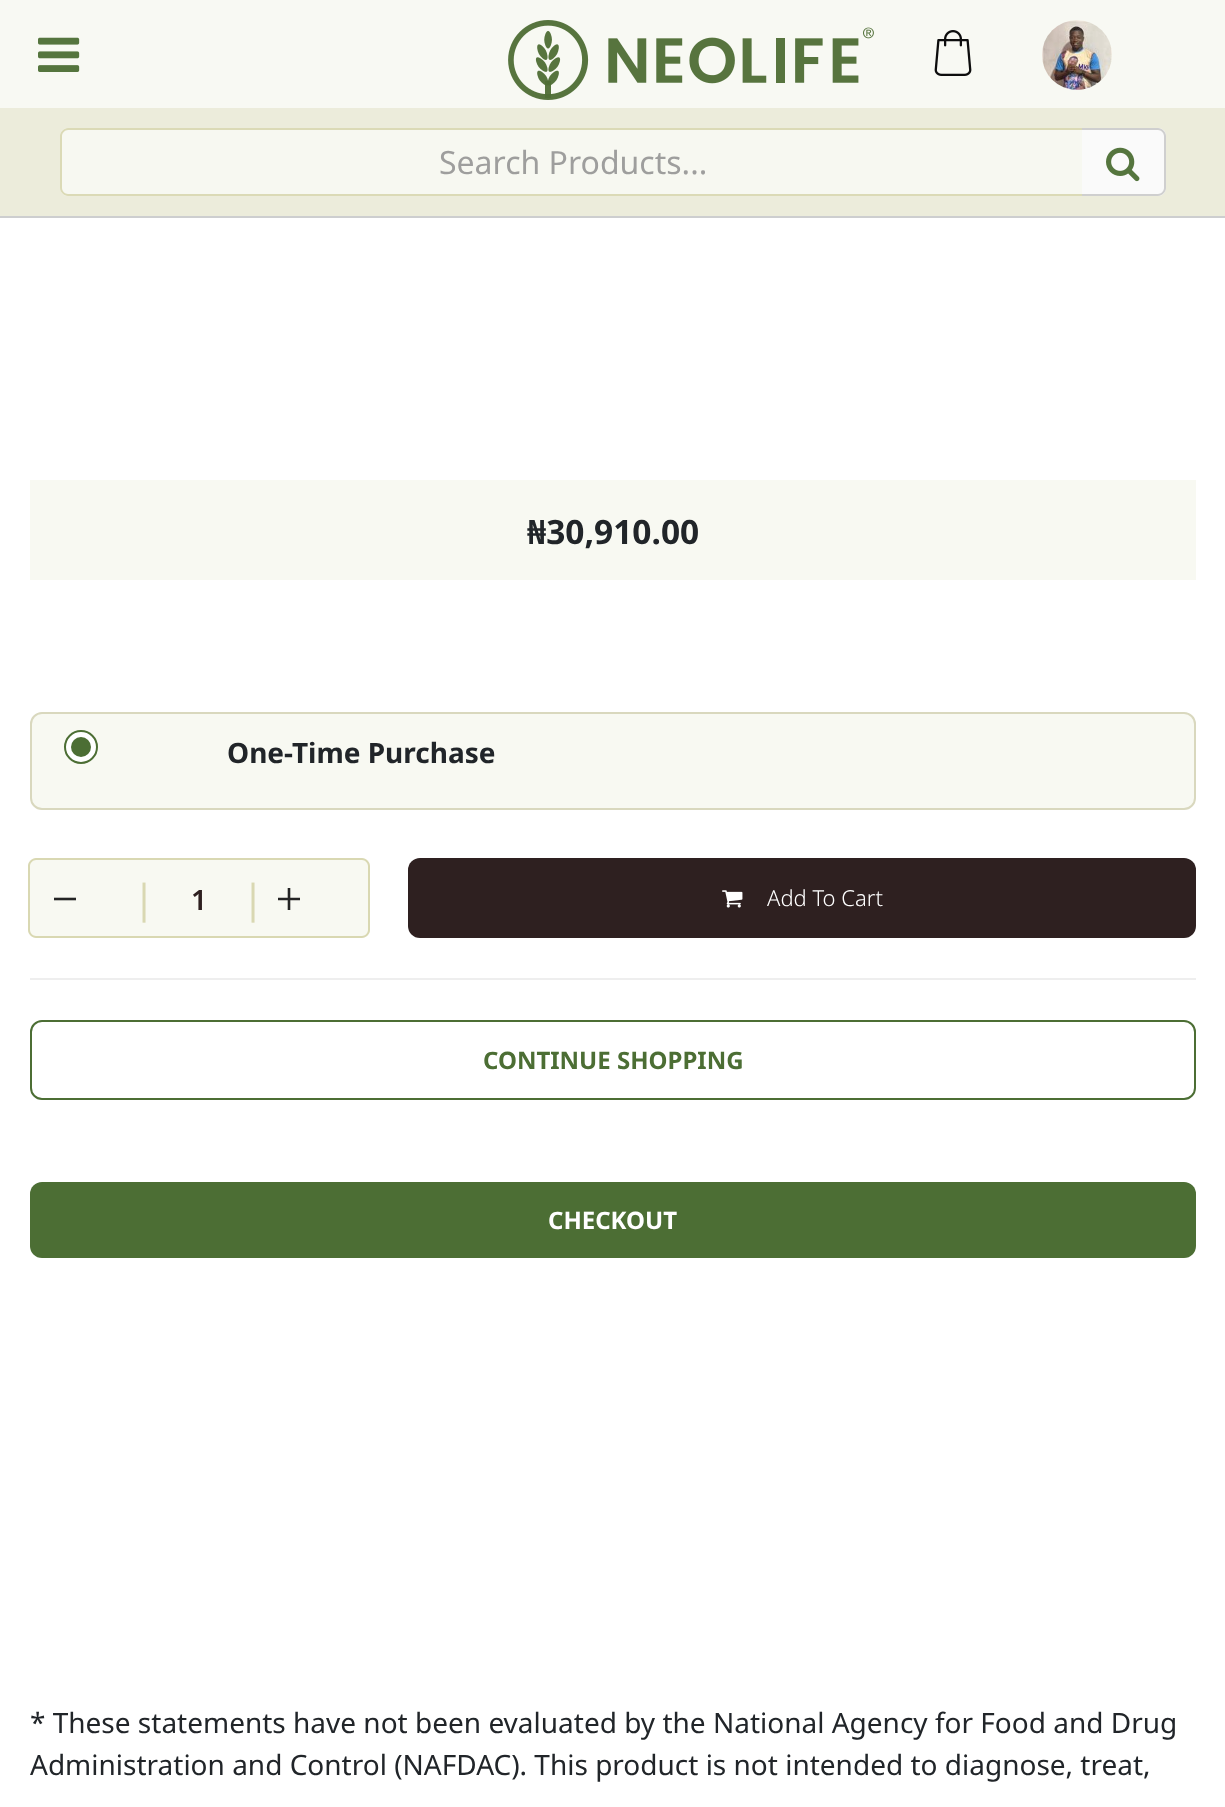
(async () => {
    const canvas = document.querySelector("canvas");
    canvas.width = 1225;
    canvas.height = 1807;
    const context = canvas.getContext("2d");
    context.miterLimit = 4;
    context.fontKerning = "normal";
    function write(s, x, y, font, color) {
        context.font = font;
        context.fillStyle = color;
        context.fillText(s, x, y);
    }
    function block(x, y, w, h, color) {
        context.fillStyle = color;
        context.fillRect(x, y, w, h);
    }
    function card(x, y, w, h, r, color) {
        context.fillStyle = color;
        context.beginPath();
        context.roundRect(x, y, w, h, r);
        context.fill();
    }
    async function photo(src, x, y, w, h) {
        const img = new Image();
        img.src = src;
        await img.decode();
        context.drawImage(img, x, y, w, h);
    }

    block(0, 0, 1225, 1807, "rgb(255, 255, 255)");
    block(0, 216, 1225, 2, "rgb(205, 206, 207)");
    block(0, 0, 1225, 108, "rgb(248, 249, 243)");
    await photo("media/1.png", 38, 37, 42, 35);
    await photo("media/2.png", 508, 20, 366, 80);
    await photo("media/3.png", 934, 30, 38, 46);
    await photo("media/4.png", 1042, 20, 70, 70);
    block(0, 108, 1225, 108, "rgb(236, 236, 219)");
    context.fillStyle = "rgb(247, 248, 241)";
    context.beginPath();
    context.roundRect(60, 128, 1024, 68, [8, 0, 0, 8]);
    context.fill();
    context.fillStyle = "rgb(219, 218, 182)";
    context.beginPath();
    context.moveTo(68, 128);
    context.lineTo(1084, 128);
    context.lineTo(1084, 196);
    context.lineTo(68, 196);
    context.bezierCurveTo(64, 196, 60, 192, 60, 188);
    context.lineTo(60, 136);
    context.bezierCurveTo(60, 132, 64, 128, 68, 128);
    context.closePath();
    context.moveTo(68, 130);
    context.lineTo(1084, 130);
    context.lineTo(1084, 194);
    context.lineTo(68, 194);
    context.bezierCurveTo(65, 194, 62, 191, 62, 188);
    context.lineTo(62, 136);
    context.bezierCurveTo(62, 133, 65, 130, 68, 130);
    context.closePath();
    context.fill("evenodd");
    write("Search Products...", 439, 174, "32px Noto Sans", "rgb(158, 158, 157)");
    context.fillStyle = "rgb(250, 250, 250)";
    context.beginPath();
    context.roundRect(1082, 128, 84, 68, [0, 8, 8, 0]);
    context.fill();
    context.fillStyle = "rgb(207, 207, 207)";
    context.beginPath();
    context.moveTo(1082, 128);
    context.lineTo(1158, 128);
    context.bezierCurveTo(1162, 128, 1166, 132, 1166, 136);
    context.lineTo(1166, 188);
    context.bezierCurveTo(1166, 192, 1162, 196, 1158, 196);
    context.lineTo(1082, 196);
    context.closePath();
    context.moveTo(1082, 130);
    context.lineTo(1158, 130);
    context.bezierCurveTo(1161, 130, 1164, 133, 1164, 136);
    context.lineTo(1164, 188);
    context.bezierCurveTo(1164, 191, 1161, 194, 1158, 194);
    context.lineTo(1082, 194);
    context.closePath();
    context.fill("evenodd");
    await photo("media/5.png", 1106, 147, 34, 35);
    block(30, 480, 1166, 100, "rgb(248, 249, 242)");
    write("₦30,910.00", 527, 544, "bold 33.5px Noto Sans", "rgb(33, 37, 41)");
    context.fillStyle = "rgb(248, 249, 242)";
    context.beginPath();
    context.roundRect(31, 713, 1164, 96, 11);
    context.fill();
    context.strokeStyle = "rgb(217, 216, 190)";
    context.lineWidth = 2;
    context.stroke();
    context.fillStyle = "rgb(255, 255, 255)";
    context.beginPath();
    context.arc(81, 747, 16, 0, Math.PI * 2);
    context.fill();
    context.strokeStyle = "rgb(76, 110, 52)";
    context.stroke();
    context.fillStyle = "rgb(76, 110, 52)";
    context.beginPath();
    context.arc(81, 747, 10, 0, Math.PI * 2);
    context.fill();
    write("One-Time Purchase", 227, 763, "bold 28px Noto Sans", "rgb(33, 37, 41)");
    block(142, 858, 114, 2, "rgb(217, 216, 178)");
    block(142, 936, 114, 2, "rgb(217, 216, 178)");
    context.fillStyle = "rgb(248, 249, 242)";
    context.beginPath();
    context.roundRect(28, 858, 116, 80, [8, 0, 0, 8]);
    context.fill();
    context.fillStyle = "rgb(217, 216, 178)";
    context.beginPath();
    context.moveTo(36, 858);
    context.lineTo(144, 858);
    context.lineTo(144, 938);
    context.lineTo(36, 938);
    context.bezierCurveTo(32, 938, 28, 934, 28, 930);
    context.lineTo(28, 866);
    context.bezierCurveTo(28, 862, 32, 858, 36, 858);
    context.closePath();
    context.moveTo(36, 860);
    context.lineTo(144, 860);
    context.lineTo(144, 936);
    context.lineTo(36, 936);
    context.bezierCurveTo(33, 936, 30, 933, 30, 930);
    context.lineTo(30, 866);
    context.bezierCurveTo(30, 863, 33, 860, 36, 860);
    context.closePath();
    context.fill("evenodd");
    context.beginPath();
    context.moveTo(54, 899);
    context.lineTo(76, 899);
    context.strokeStyle = "rgb(36, 36, 36)";
    context.lineWidth = 2.6;
    context.stroke();
    block(144, 860, 110, 76, "rgb(248, 249, 242)");
    write("|", 133, 913, "40px Noto Sans", "rgb(217, 216, 178)");
    write("1", 191, 910, "600 28px Noto Sans", "rgb(46, 32, 32)");
    context.fillStyle = "rgb(248, 249, 242)";
    context.beginPath();
    context.roundRect(254, 858, 116, 80, [0, 8, 8, 0]);
    context.fill();
    context.fillStyle = "rgb(217, 216, 178)";
    context.beginPath();
    context.moveTo(254, 858);
    context.lineTo(362, 858);
    context.bezierCurveTo(366, 858, 370, 862, 370, 866);
    context.lineTo(370, 930);
    context.bezierCurveTo(370, 934, 366, 938, 362, 938);
    context.lineTo(254, 938);
    context.closePath();
    context.moveTo(254, 860);
    context.lineTo(362, 860);
    context.bezierCurveTo(365, 860, 368, 863, 368, 866);
    context.lineTo(368, 930);
    context.bezierCurveTo(368, 933, 365, 936, 362, 936);
    context.lineTo(254, 936);
    context.closePath();
    context.fill("evenodd");
    write("|", 242, 913, "40px Noto Sans", "rgb(217, 216, 178)");
    context.beginPath();
    context.moveTo(289, 888);
    context.lineTo(289, 910);
    context.moveTo(278, 899);
    context.lineTo(300, 899);
    context.stroke();
    card(408, 858, 788, 80, 12, "rgb(46, 32, 32)");
    await photo("media/6.png", 722, 890, 21, 18);
    write("Add To Cart", 767, 906, "300 22px Noto Sans", "rgb(255, 255, 255)");
    block(30, 978, 1166, 2, "rgb(238, 238, 238)");
    context.beginPath();
    context.roundRect(31, 1021, 1164, 78, 11);
    context.strokeStyle = "rgb(76, 110, 52)";
    context.lineWidth = 2;
    context.stroke();
    write("CONTINUE SHOPPING", 483, 1069, "bold 24px Noto Sans", "rgb(76, 110, 52)");
    card(30, 1182, 1166, 76, 12, "rgb(76, 110, 52)");
    write("CHECKOUT", 548, 1229, "bold 24px Noto Sans", "rgb(255, 255, 255)");
    write("* These statements have not been evaluated by the National Agency for Food and Drug", 30, 1733, "28px Noto Sans", "rgb(33, 37, 41)");
    write("Administration and Control (NAFDAC). This product is not intended to diagnose, treat,", 30, 1775, "28px Noto Sans", "rgb(33, 37, 41)");
})();
